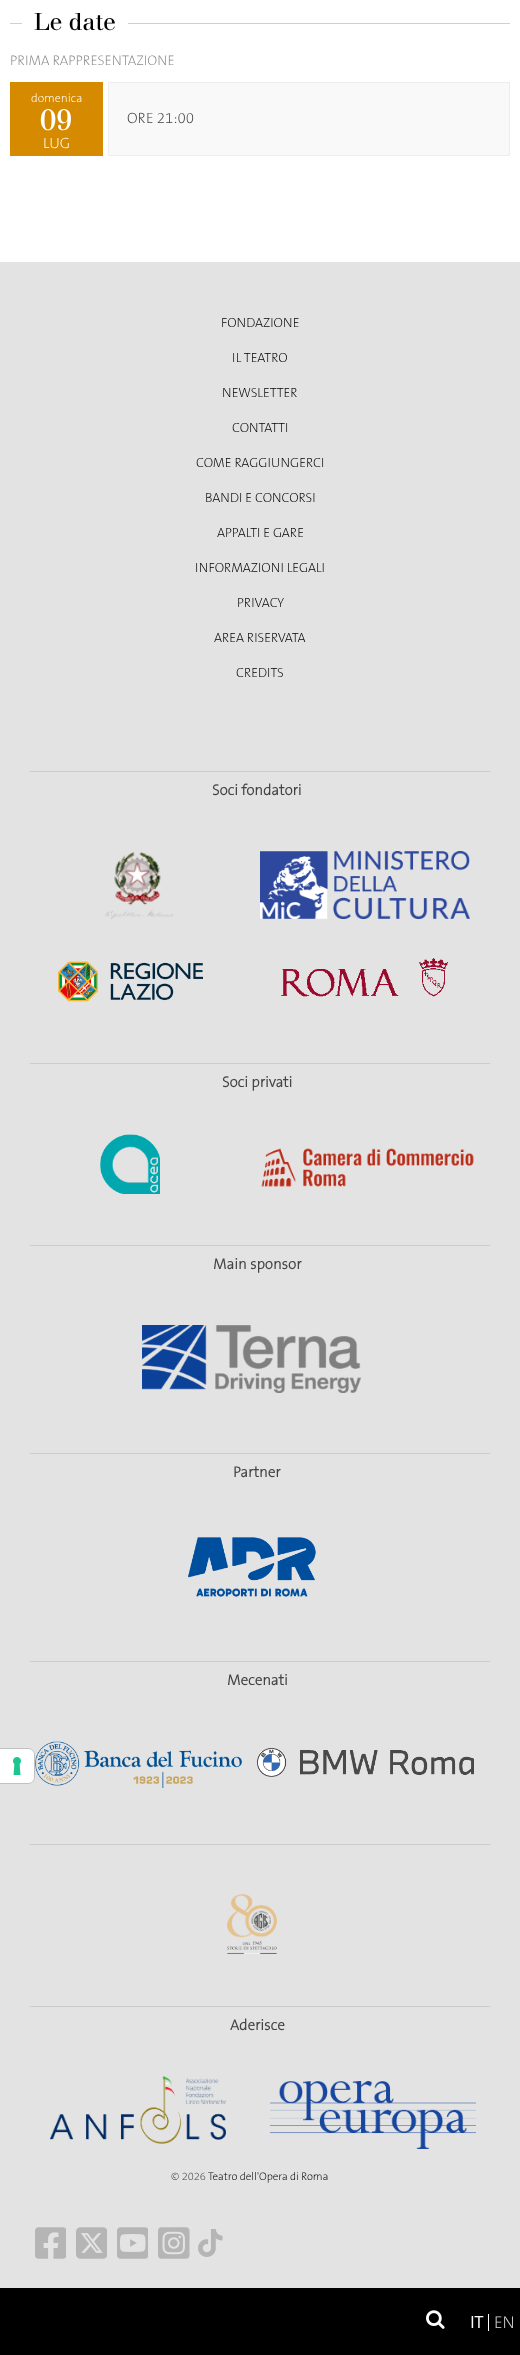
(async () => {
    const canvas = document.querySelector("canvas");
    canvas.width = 520;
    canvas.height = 2355;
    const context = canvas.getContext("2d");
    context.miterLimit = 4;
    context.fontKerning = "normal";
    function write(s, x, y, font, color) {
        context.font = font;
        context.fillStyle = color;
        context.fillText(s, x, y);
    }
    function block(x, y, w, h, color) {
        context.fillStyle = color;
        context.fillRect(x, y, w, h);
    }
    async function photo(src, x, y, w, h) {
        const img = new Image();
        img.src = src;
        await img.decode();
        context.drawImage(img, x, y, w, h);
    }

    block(0, 0, 520, 2355, "rgb(255, 255, 255)");
    block(10, 23, 500, 1, "rgb(207, 207, 207)");
    block(22, 23, 106, 1, "rgb(255, 255, 255)");
    write("Le date", 34, 30, "24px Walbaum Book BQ", "rgb(0, 0, 0)");
    write("PRIMA RAPPRESENTAZIONE", 10, 65, "200 14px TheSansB", "rgb(138, 138, 138)");
    block(10, 82, 93, 74, "rgb(214, 138, 0)");
    write("domenica", 31, 102, "200 12px TheSansB", "rgb(255, 255, 255)");
    write("09", 40, 130, "30px Walbaum Book BQ", "rgb(255, 255, 255)");
    write("LUG", 43, 148, "200 15px TheSansB", "rgb(255, 255, 255)");
    context.fillStyle = "rgb(249, 249, 249)";
    context.beginPath();
    context.rect(108.5, 82.5, 401, 73);
    context.fill();
    context.strokeStyle = "rgb(237, 237, 237)";
    context.stroke();
    write("ORE 21:00", 127, 123, "200 15px TheSansB", "rgb(68, 68, 68)");
    block(0, 262, 520, 2026, "rgb(227, 227, 227)");
    context.beginPath();
    context.moveTo(-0.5, 1748.5);
    context.lineTo(28, 1748.5);
    context.bezierCurveTo(31.5, 1748.5, 34.5, 1751.5, 34.5, 1755);
    context.lineTo(34.5, 1777);
    context.bezierCurveTo(34.5, 1780.5, 31.5, 1783.5, 28, 1783.5);
    context.lineTo(-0.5, 1783.5);
    context.closePath();
    context.strokeStyle = "rgb(193, 193, 193)";
    context.stroke();
    context.fillStyle = "rgb(255, 255, 255)";
    context.beginPath();
    context.roundRect(0, 1749, 34, 34, [0, 6, 6, 0]);
    context.fill();
    await photo("media/1.png", 13, 1757, 8, 18);
    write("FONDAZIONE", 221, 327, "200 13.25px TheSansB", "rgb(0, 0, 0)");
    write("IL TEATRO", 232, 362, "200 13.25px TheSansB", "rgb(0, 0, 0)");
    write("NEWSLETTER", 222, 397, "200 13.25px TheSansB", "rgb(0, 0, 0)");
    write("CONTATTI", 232, 432, "200 13.25px TheSansB", "rgb(0, 0, 0)");
    write("COME RAGGIUNGERCI", 196, 467, "200 13.25px TheSansB", "rgb(0, 0, 0)");
    write("BANDI E CONCORSI", 205, 502, "200 13.25px TheSansB", "rgb(0, 0, 0)");
    write("APPALTI E GARE", 217, 537, "200 13.25px TheSansB", "rgb(0, 0, 0)");
    write("INFORMAZIONI LEGALI", 195, 572, "200 13.25px TheSansB", "rgb(0, 0, 0)");
    write("PRIVACY", 237, 607, "200 13.25px TheSansB", "rgb(0, 0, 0)");
    write("AREA RISERVATA", 214, 642, "200 13.25px TheSansB", "rgb(0, 0, 0)");
    write("CREDITS", 236, 677, "200 13.25px TheSansB", "rgb(0, 0, 0)");
    block(30, 771, 460, 1, "rgb(204, 204, 204)");
    write("Soci fondatori", 212, 795, "bold 15px TheSansB", "rgb(68, 68, 68)");
    await photo("media/2.png", 105, 852, 68, 67);
    await photo("media/3.png", 260, 851, 210, 68);
    await photo("media/4.png", 58, 961, 145, 41);
    await photo("media/5.png", 281, 958, 167, 39);
    block(30, 1063, 460, 1, "rgb(204, 204, 204)");
    write("Soci privati", 222, 1087, "bold 15px TheSansB", "rgb(68, 68, 68)");
    await photo("media/6.png", 100, 1134, 60, 60);
    await photo("media/7.png", 261, 1148, 213, 39);
    block(30, 1245, 460, 1, "rgb(204, 204, 204)");
    write("Main sponsor", 213, 1269, "bold 15px TheSansB", "rgb(68, 68, 68)");
    await photo("media/8.png", 142, 1325, 219, 68);
    block(30, 1453, 460, 1, "rgb(204, 204, 204)");
    write("Partner", 233, 1477, "bold 15px TheSansB", "rgb(68, 68, 68)");
    await photo("media/9.png", 188, 1537, 128, 60);
    block(30, 1661, 460, 1, "rgb(204, 204, 204)");
    write("Mecenati", 227, 1685, "bold 15px TheSansB", "rgb(68, 68, 68)");
    await photo("media/10.png", 35, 1741, 207, 47);
    await photo("media/11.png", 257, 1748, 217, 29);
    block(30, 1844, 460, 1, "rgb(204, 204, 204)");
    await photo("media/12.png", 227, 1894, 50, 60);
    block(30, 2006, 460, 1, "rgb(204, 204, 204)");
    write("Aderisce", 230, 2030, "bold 15px TheSansB", "rgb(68, 68, 68)");
    await photo("media/13.png", 50, 2076, 176, 68);
    await photo("media/14.png", 270, 2081, 206, 68);
    write("© 2026", 171, 2180, "200 11px TheSansB", "rgb(68, 68, 68)");
    write("Teatro dell'Opera di Roma", 208, 2180, "200 11px TheSansB", "rgb(0, 0, 0)");
    await photo("media/15.png", 35, 2227, 31, 32);
    await photo("media/16.png", 76, 2227, 31, 32);
    await photo("media/17.png", 117, 2227, 31, 32);
    await photo("media/18.png", 158, 2227, 32, 32);
    await photo("media/19.png", 198, 2229, 25, 28);
    block(0, 2288, 520, 67, "rgb(0, 0, 0)");
    await photo("media/20.png", 426, 2310, 19, 19);
    block(488, 2314, 1, 17, "rgb(255, 255, 255)");
    write("IT", 470, 2328, "bold 17px TheSansB", "rgb(255, 255, 255)");
    write("EN", 494, 2328, "200 17px TheSansB", "rgb(218, 218, 218)");
})();
